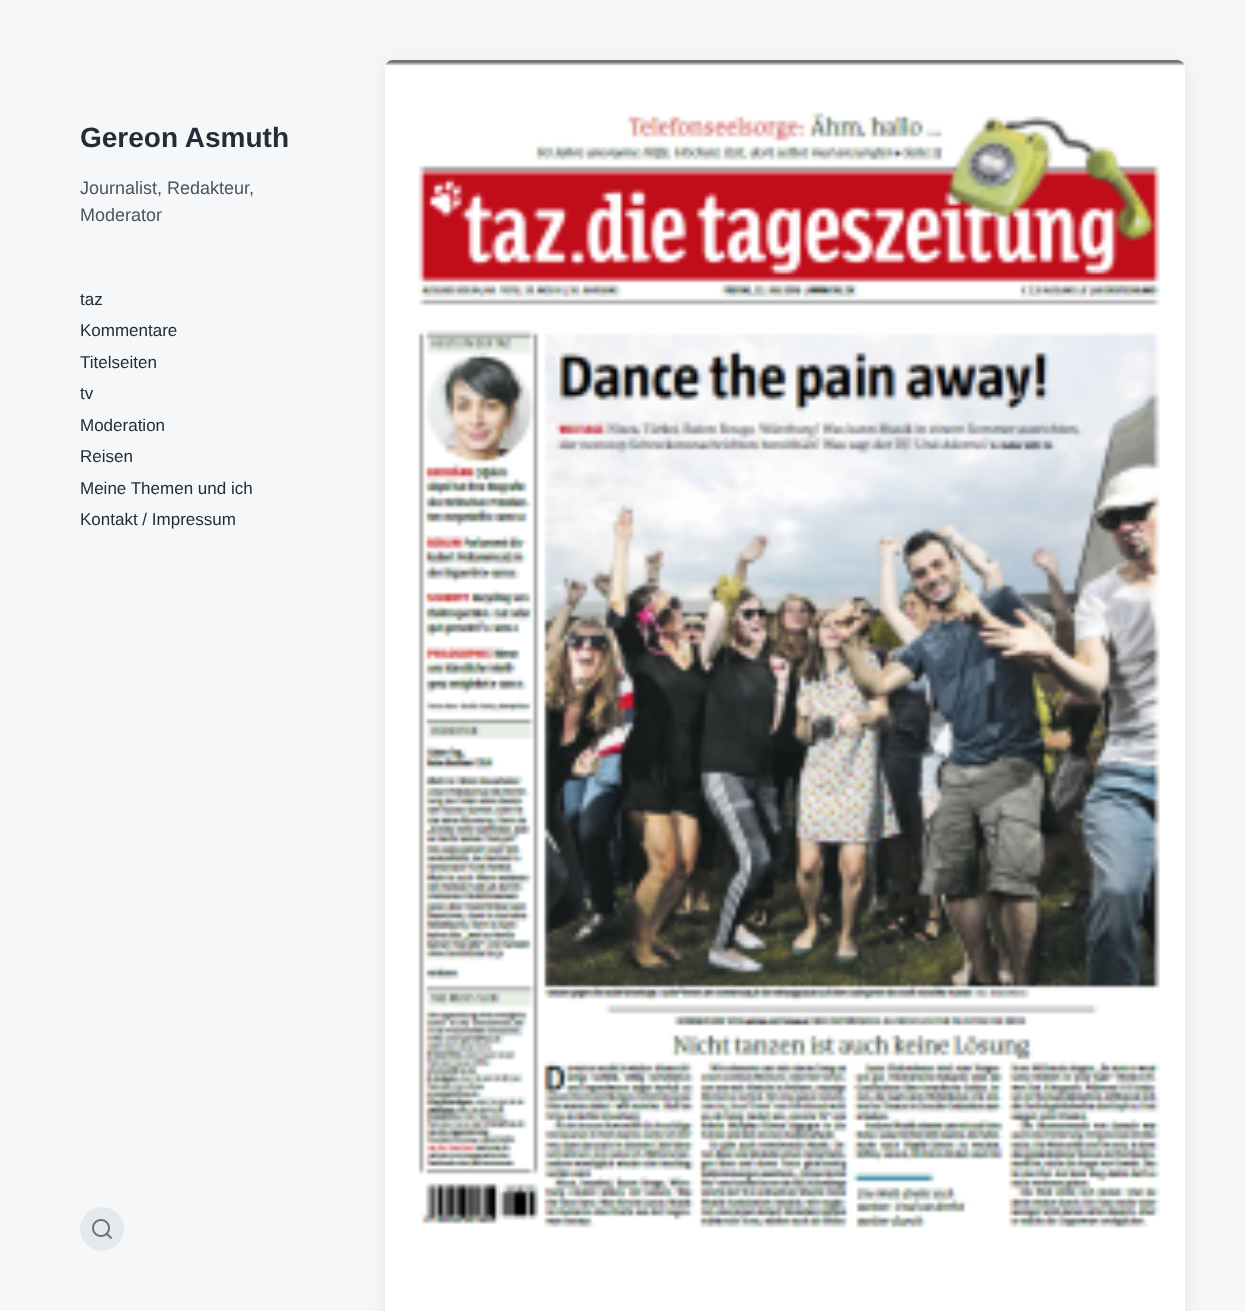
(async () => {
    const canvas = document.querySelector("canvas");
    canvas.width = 1245;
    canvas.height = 1311;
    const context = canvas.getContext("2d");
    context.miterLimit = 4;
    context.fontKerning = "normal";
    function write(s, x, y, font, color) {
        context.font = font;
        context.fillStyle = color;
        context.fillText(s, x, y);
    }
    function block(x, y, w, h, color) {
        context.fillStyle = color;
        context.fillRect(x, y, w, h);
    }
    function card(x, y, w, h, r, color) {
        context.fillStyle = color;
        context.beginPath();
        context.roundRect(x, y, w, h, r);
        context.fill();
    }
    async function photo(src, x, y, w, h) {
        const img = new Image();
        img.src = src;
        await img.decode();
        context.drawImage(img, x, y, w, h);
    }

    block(0, 0, 1245, 1311, "rgb(246, 247, 248)");
    write("Gereon Asmuth", 80, 147, "bold 28px Liberation Sans", "rgb(35, 45, 55)");
    write("Journalist, Redakteur,", 80, 194, "18px Liberation Sans", "rgb(75, 85, 95)");
    write("Moderator", 80, 221, "18px Liberation Sans", "rgb(75, 85, 95)");
    write("taz", 80, 305, "17px Liberation Sans", "rgb(35, 45, 55)");
    write("Kommentare", 80, 336, "17px Liberation Sans", "rgb(35, 45, 55)");
    write("Titelseiten", 80, 368, "17px Liberation Sans", "rgb(35, 45, 55)");
    write("tv", 80, 399, "17px Liberation Sans", "rgb(35, 45, 55)");
    write("Moderation", 80, 431, "17px Liberation Sans", "rgb(35, 45, 55)");
    write("Reisen", 80, 462, "17px Liberation Sans", "rgb(35, 45, 55)");
    write("Meine Themen und ich", 80, 494, "17px Liberation Sans", "rgb(35, 45, 55)");
    write("Kontakt / Impressum", 80, 525, "17px Liberation Sans", "rgb(35, 45, 55)");
    context.fillStyle = "rgb(230, 233, 236)";
    context.beginPath();
    context.arc(102, 1229, 22, 0, Math.PI * 2);
    context.fill();
    await photo("media/1.png", 92, 1219, 20, 20);
    context.fillStyle = "rgba(5, 10, 15, 0.07)";
    context.filter = "blur(9px)";
    context.beginPath();
    context.roundRect(385, 63, 800, 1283, 8);
    context.fill();
    context.filter = "none";
    card(385, 60, 800, 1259, 8, "rgb(255, 255, 255)");
    await photo("media/2.png", 385, 60, 800, 1168);
})();
